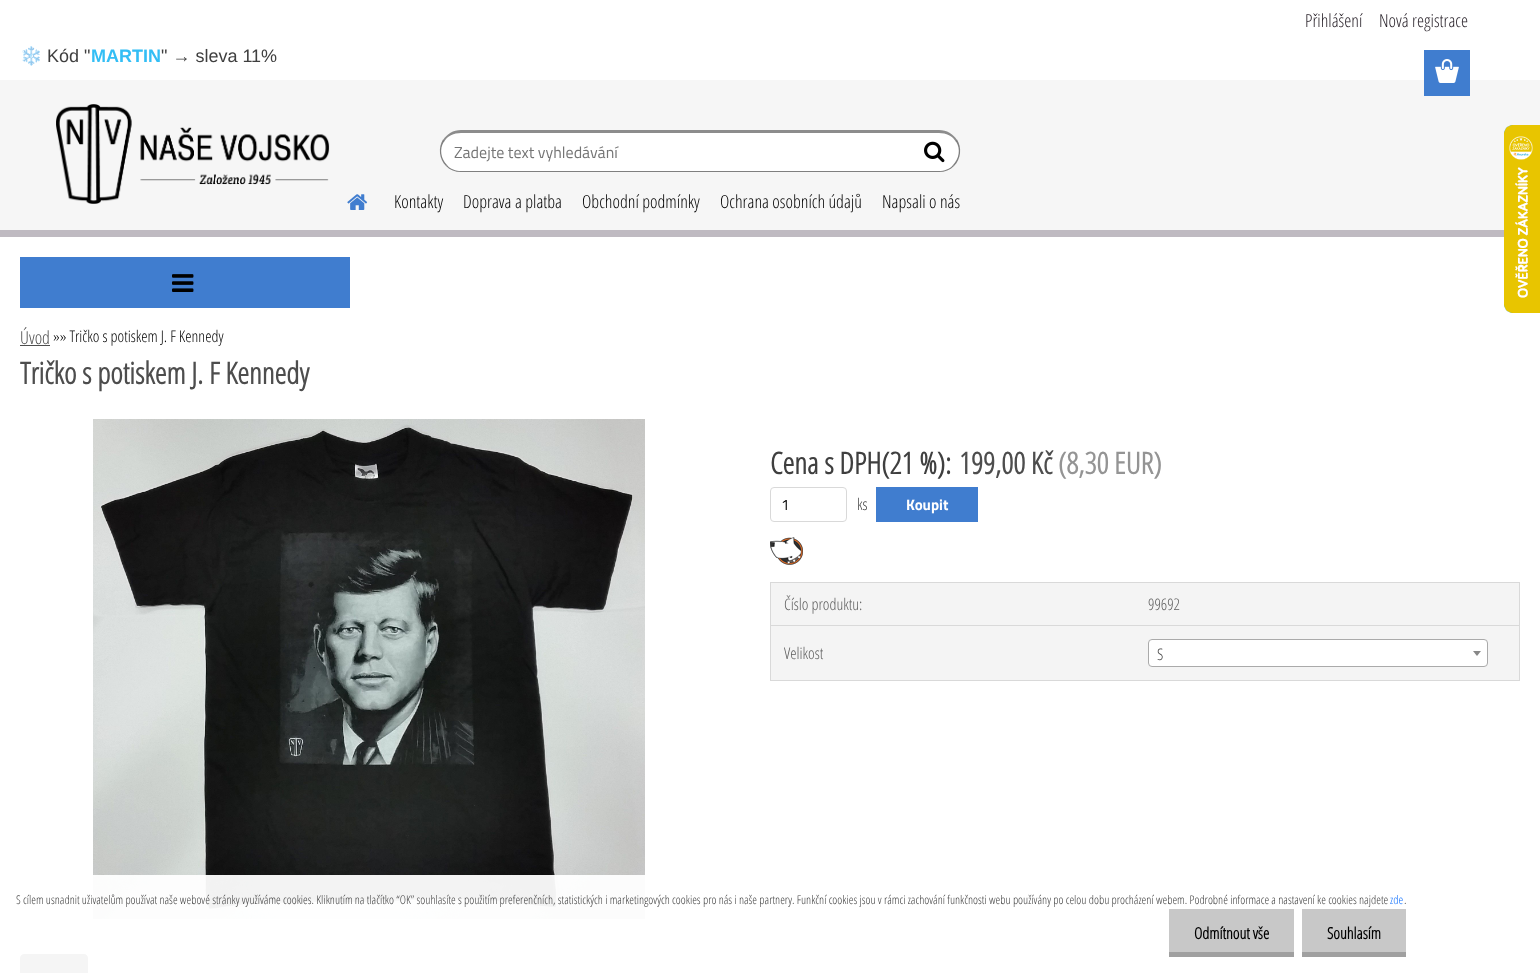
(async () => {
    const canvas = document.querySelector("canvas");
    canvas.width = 1540;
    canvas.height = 973;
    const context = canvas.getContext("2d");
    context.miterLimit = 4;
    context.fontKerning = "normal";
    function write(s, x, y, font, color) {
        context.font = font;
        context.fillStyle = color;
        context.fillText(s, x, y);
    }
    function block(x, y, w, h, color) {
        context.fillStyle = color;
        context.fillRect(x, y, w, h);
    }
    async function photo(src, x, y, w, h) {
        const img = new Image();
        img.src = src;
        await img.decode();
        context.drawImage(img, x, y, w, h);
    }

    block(0, 0, 1540, 973, "rgb(255, 255, 255)");
    write("Přihlášení", 1305, 27, "300 18px Open Sans Condensed", "rgb(35, 28, 36)");
    write("Nová registrace", 1379, 27, "300 18px Open Sans Condensed", "rgb(35, 28, 36)");
    block(0, 80, 1540, 150, "rgb(246, 246, 246)");
    block(1424, 50, 46, 46, "rgb(64, 125, 207)");
    await photo("media/1.png", 1435, 59, 24, 24);
    block(20, 257, 330, 51, "rgb(64, 125, 207)");
    await photo("media/2.png", 172, 274, 22, 18);
    write("Úvod", 20, 344, "300 18px Open Sans Condensed", "rgb(77, 77, 77)");
    block(20, 345, 30, 1, "rgb(77, 77, 77)");
    write("»» Tričko s potiskem J. F Kennedy", 53, 342, "300 16px Open Sans Condensed", "rgb(0, 0, 0)");
    write("Tričko s potiskem J. F Kennedy", 20, 384, "bold 30px Open Sans Condensed", "rgb(77, 77, 77)");
    await photo("media/3.png", 93, 419, 552, 500);
    write("Cena s DPH(21 %):", 770, 474, "bold 30px Open Sans Condensed", "rgb(63, 63, 63)");
    write("199,00 Kč", 959, 474, "bold 30px Open Sans Condensed", "rgb(77, 77, 77)");
    write("(8,30 EUR)", 1058, 474, "bold 30px Open Sans Condensed", "rgb(148, 148, 148)");
    context.beginPath();
    context.roundRect(770.5, 487.5, 76, 34, 3.5);
    context.strokeStyle = "rgb(217, 217, 217)";
    context.stroke();
    write("1", 781, 510, "15px Titillium Web", "rgb(0, 0, 0)");
    write("ks", 857, 510, "300 16px Open Sans Condensed", "rgb(63, 63, 63)");
    block(876, 487, 102, 35, "rgb(64, 125, 207)");
    write("Koupit", 906, 510, "bold 15px Titillium Web", "rgb(255, 255, 255)");
    await photo("media/4.png", 770, 537, 33, 28);
    block(771, 583, 748, 42, "rgb(244, 244, 244)");
    block(770, 582, 750, 1, "rgb(217, 217, 217)");
    block(770, 625, 750, 1, "rgb(217, 217, 217)");
    block(1519, 625, 1, 56, "rgb(217, 217, 217)");
    block(1519, 582, 1, 44, "rgb(217, 217, 217)");
    block(770, 680, 750, 1, "rgb(217, 217, 217)");
    block(770, 625, 1, 56, "rgb(217, 217, 217)");
    block(770, 582, 1, 44, "rgb(217, 217, 217)");
    write("Číslo produktu:", 784, 610, "300 16px Open Sans Condensed", "rgb(93, 93, 93)");
    write("99692", 1148, 610, "300 16px Open Sans Condensed", "rgb(93, 93, 93)");
    block(771, 626, 748, 54, "rgb(244, 244, 244)");
    write("Velikost", 784, 659, "300 16px Open Sans Condensed", "rgb(93, 93, 93)");
    context.fillStyle = "rgb(255, 255, 255)";
    context.beginPath();
    context.roundRect(1148.5, 639.5, 339, 27, 3.5);
    context.fill();
    context.strokeStyle = "rgb(170, 170, 170)";
    context.stroke();
    write("S", 1157, 660, "300 16px Open Sans Condensed", "rgb(63, 63, 63)");
    context.fillStyle = "rgb(136, 136, 136)";
    context.beginPath();
    context.moveTo(1473, 651);
    context.lineTo(1481, 651);
    context.lineTo(1477, 656);
    context.closePath();
    context.fill();
    context.fillStyle = "rgb(60, 60, 60)";
    context.beginPath();
    context.moveTo(24, 954);
    context.lineTo(84, 954);
    context.bezierCurveTo(86, 954, 88, 956, 88, 958);
    context.lineTo(88, 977);
    context.lineTo(20, 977);
    context.lineTo(20, 958);
    context.bezierCurveTo(20, 956, 22, 954, 24, 954);
    context.closePath();
    context.fill();
    write("❄️", 20, 62, "18px Noto Color Emoji", "rgb(63, 63, 63)");
    write("Kód \"", 47, 62, "18px Liberation Sans", "rgb(63, 63, 63)");
    write("MARTIN", 91, 62, "bold 18px Liberation Sans", "rgb(51, 190, 245)");
    write("\" → sleva 11%", 161, 62, "18px Liberation Sans", "rgb(63, 63, 63)");
    block(0, 230, 1504, 7, "rgb(191, 186, 193)");
    await photo("media/5.png", 56, 104, 274, 100);
    context.fillStyle = "rgb(255, 255, 255)";
    context.beginPath();
    context.roundRect(440, 130, 474, 42, [21, 0, 0, 21]);
    context.fill();
    context.fillStyle = "rgb(140, 140, 140)";
    context.beginPath();
    context.moveTo(461, 130);
    context.bezierCurveTo(453, 130, 447, 134, 443, 140);
    context.lineTo(444, 142);
    context.bezierCurveTo(447, 136, 454, 133, 461, 133);
    context.lineTo(914, 133);
    context.lineTo(914, 130);
    context.closePath();
    context.fill();
    context.fillStyle = "rgba(0, 0, 0, 0.5)";
    context.beginPath();
    context.moveTo(914, 172);
    context.lineTo(914, 171);
    context.lineTo(461, 171);
    context.bezierCurveTo(456, 171, 450, 169, 447, 165);
    context.lineTo(446, 166);
    context.bezierCurveTo(450, 170, 455, 172, 461, 172);
    context.closePath();
    context.fill();
    context.beginPath();
    context.moveTo(446, 166);
    context.bezierCurveTo(439, 159, 438, 147.5, 443, 139.5);
    context.lineTo(444, 141.5);
    context.bezierCurveTo(439, 149, 441, 159, 447, 165);
    context.closePath();
    context.fill();
    write("Zadejte text vyhledávání", 454, 158, "16px Titillium Web", "rgb(117, 117, 117)");
    context.fillStyle = "rgb(255, 255, 255)";
    context.beginPath();
    context.roundRect(914, 130, 46, 42, [0, 21, 21, 0]);
    context.fill();
    context.fillStyle = "rgb(140, 140, 140)";
    context.beginPath();
    context.moveTo(914, 130);
    context.lineTo(914, 133);
    context.lineTo(939, 133);
    context.bezierCurveTo(946, 133, 953, 136, 956, 142);
    context.lineTo(957, 140);
    context.bezierCurveTo(953, 134, 947, 130, 939, 130);
    context.closePath();
    context.fill();
    context.fillStyle = "rgba(0, 0, 0, 0.5)";
    context.beginPath();
    context.moveTo(953, 165);
    context.bezierCurveTo(959, 159, 961, 149, 956, 141.5);
    context.lineTo(957, 139.5);
    context.bezierCurveTo(962, 147.5, 961, 159, 954, 166);
    context.closePath();
    context.fill();
    context.beginPath();
    context.moveTo(914, 171);
    context.lineTo(914, 172);
    context.lineTo(939, 172);
    context.bezierCurveTo(945, 172, 950, 170, 954, 166);
    context.lineTo(953, 165);
    context.bezierCurveTo(950, 169, 944, 171, 939, 171);
    context.closePath();
    context.fill();
    await photo("media/6.png", 924, 141, 21, 22);
    await photo("media/7.png", 347, 194, 21, 16);
    write("Kontakty", 394, 208, "300 18px Open Sans Condensed", "rgb(0, 0, 0)");
    write("Doprava a platba", 463, 208, "300 18px Open Sans Condensed", "rgb(0, 0, 0)");
    write("Obchodní podmínky", 582, 208, "300 18px Open Sans Condensed", "rgb(0, 0, 0)");
    write("Ochrana osobních údajů", 720, 208, "300 18px Open Sans Condensed", "rgb(0, 0, 0)");
    write("Napsali o nás", 882, 208, "300 18px Open Sans Condensed", "rgb(0, 0, 0)");
    await photo("media/8.png", 1504, 125, 36, 188);
    block(20, 875, 625, 98, "rgba(255, 255, 255, 0.95)");
    write("S cílem usnadnit uživatelům používat naše webové stránky využíváme cookies. Kliknutím na tlačítko “OK” souhlasíte s použitím preferenčních, statistických i marketingových cookies pro nás i naše partnery. Funkční cookies jsou v rámci zachování funkčnosti webu používány po celou dobu procházení webem. Podrobné informace a nastavení ke cookies najdete", 16, 904, "300 12px Open Sans Condensed", "rgb(63, 63, 63)");
    write("zde", 1390, 904, "300 12px Open Sans Condensed", "rgb(13, 110, 253)");
    write(".", 1404, 904, "300 12px Open Sans Condensed", "rgb(63, 63, 63)");
    block(1169, 909, 125, 43, "rgb(200, 200, 200)");
    block(1169, 952, 125, 5, "rgb(160, 160, 160)");
    write("Odmítnout vše", 1194, 939, "bold 16px Open Sans Condensed", "rgb(0, 0, 0)");
    block(1302, 909, 104, 43, "rgb(200, 200, 200)");
    block(1302, 952, 104, 5, "rgb(160, 160, 160)");
    write("Souhlasím", 1327, 939, "bold 16px Open Sans Condensed", "rgb(0, 0, 0)");
})();
